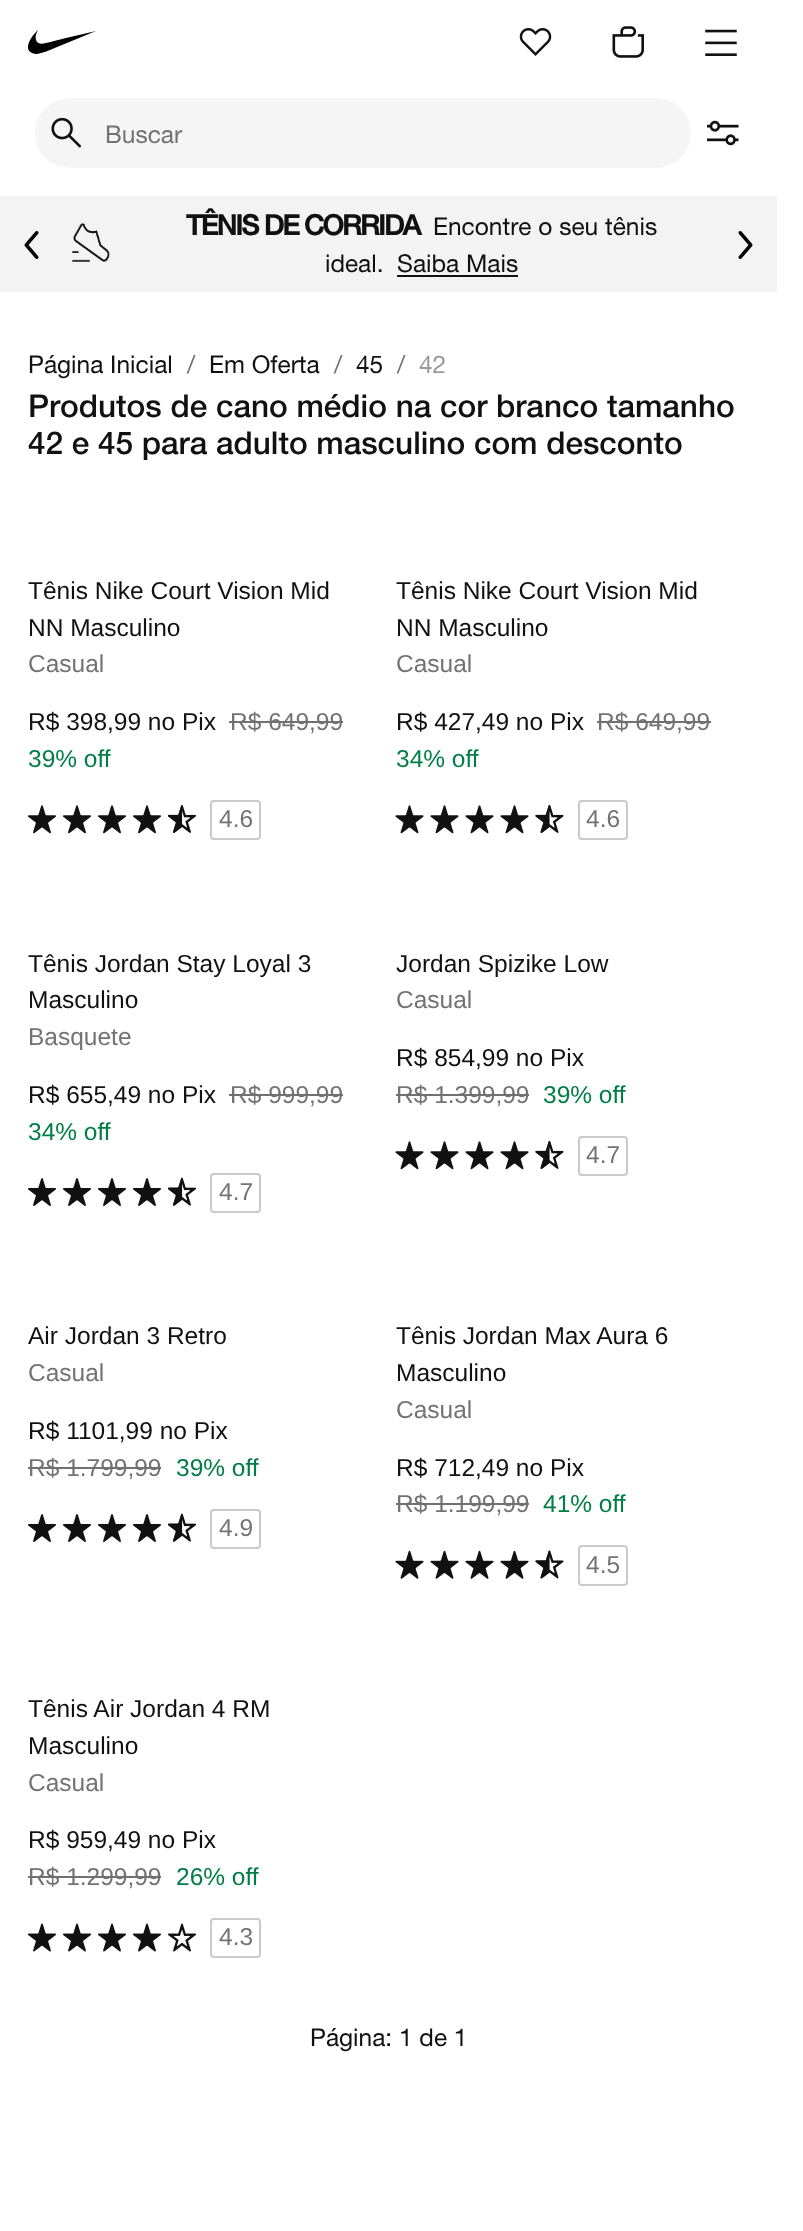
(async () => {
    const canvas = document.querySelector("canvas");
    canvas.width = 803;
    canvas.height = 2231;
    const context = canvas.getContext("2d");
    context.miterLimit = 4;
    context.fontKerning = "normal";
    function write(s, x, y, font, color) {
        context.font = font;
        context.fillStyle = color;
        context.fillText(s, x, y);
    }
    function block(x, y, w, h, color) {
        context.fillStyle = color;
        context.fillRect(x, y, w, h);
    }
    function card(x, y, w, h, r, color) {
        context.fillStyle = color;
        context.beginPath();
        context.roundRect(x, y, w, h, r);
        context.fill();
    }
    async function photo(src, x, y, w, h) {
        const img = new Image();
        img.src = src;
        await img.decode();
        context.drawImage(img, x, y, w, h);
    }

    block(0, 0, 803, 2231, "rgb(255, 255, 255)");
    context.fillStyle = "rgb(0, 0, 0)";
    context.beginPath();
    context.moveTo(66, 38);
    context.lineTo(54, 41);
    context.bezierCurveTo(49, 42, 38, 47, 36, 40);
    context.bezierCurveTo(35, 37, 36, 33, 38, 30);
    context.bezierCurveTo(32, 35, 20, 52, 36, 54);
    context.bezierCurveTo(37, 54, 41, 53, 45, 52);
    context.lineTo(96, 31);
    context.closePath();
    context.fill();
    await photo("media/1.png", 519, 28, 33, 28);
    await photo("media/2.png", 612, 26, 32, 32);
    await photo("media/3.png", 705, 29, 32, 27);
    card(35, 98, 656, 70, 35, "rgb(245, 245, 245)");
    await photo("media/4.png", 51, 117, 30, 31);
    write("Buscar", 105, 143, "24.5px Helvetica Neue", "rgb(115, 115, 115)");
    await photo("media/5.png", 707, 120, 32, 26);
    block(0, 196, 777, 96, "rgb(243, 243, 243)");
    await photo("media/6.png", 24, 231, 15, 28);
    await photo("media/7.png", 72, 223, 38, 39);
    context.letterSpacing = "-1.75px";
    write("TÊNIS DE CORRIDA", 186, 235, "bold 28px Helvetica Neue", "rgb(17, 17, 17)");
    context.letterSpacing = "0px";
    write("Encontre o seu tênis", 433, 235, "24.5px Helvetica Neue", "rgb(17, 17, 17)");
    write("ideal.", 325, 272, "24.5px Helvetica Neue", "rgb(17, 17, 17)");
    write("Saiba Mais", 397, 272, "24.5px Helvetica Neue", "rgb(17, 17, 17)");
    block(397, 275, 121, 2, "rgb(17, 17, 17)");
    await photo("media/8.png", 738, 231, 15, 28);
    write("Página Inicial", 28, 373, "24.5px Helvetica Neue", "rgb(17, 17, 17)");
    write("/", 187, 373, "24.5px Helvetica Neue", "rgb(115, 115, 115)");
    write("Em Oferta", 209, 373, "24.5px Helvetica Neue", "rgb(17, 17, 17)");
    write("/", 334, 373, "24.5px Helvetica Neue", "rgb(115, 115, 115)");
    write("45", 356, 373, "24.5px Helvetica Neue", "rgb(17, 17, 17)");
    write("/", 397, 373, "24.5px Helvetica Neue", "rgb(115, 115, 115)");
    write("42", 419, 373, "24.5px Helvetica Neue", "rgb(153, 153, 153)");
    write("Produtos de cano médio na cor branco tamanho", 28, 417, "500 31.5px Helvetica Neue", "rgb(17, 17, 17)");
    write("42 e 45 para adulto masculino com desconto", 28, 454, "500 31.5px Helvetica Neue", "rgb(17, 17, 17)");
    write("Tênis Nike Court Vision Mid", 28, 599, "24.5px Liberation Sans", "rgb(17, 17, 17)");
    write("NN Masculino", 28, 636, "24.5px Liberation Sans", "rgb(17, 17, 17)");
    write("Casual", 28, 672, "24.5px Liberation Sans", "rgb(115, 115, 115)");
    write("R$ 398,99 no Pix", 28, 730, "24.5px Liberation Sans", "rgb(17, 17, 17)");
    write("R$ 649,99", 230, 730, "24.5px Liberation Sans", "rgb(115, 115, 115)");
    block(229, 721, 114, 2, "rgb(112, 112, 114)");
    write("39% off", 28, 767, "24.5px Liberation Sans", "rgb(0, 125, 72)");
    await photo("media/9.png", 28, 805, 28, 29);
    await photo("media/9.png", 63, 805, 28, 29);
    await photo("media/9.png", 98, 805, 28, 29);
    await photo("media/9.png", 133, 805, 28, 29);
    await photo("media/10.png", 168, 805, 28, 28);
    context.beginPath();
    context.roundRect(211, 801, 49, 38, 3);
    context.strokeStyle = "rgb(202, 202, 203)";
    context.lineWidth = 2;
    context.stroke();
    write("4.6", 219, 827, "24.5px Liberation Sans", "rgb(115, 115, 115)");
    write("Tênis Nike Court Vision Mid", 396, 599, "24.5px Liberation Sans", "rgb(17, 17, 17)");
    write("NN Masculino", 396, 636, "24.5px Liberation Sans", "rgb(17, 17, 17)");
    write("Casual", 396, 672, "24.5px Liberation Sans", "rgb(115, 115, 115)");
    write("R$ 427,49 no Pix", 396, 730, "24.5px Liberation Sans", "rgb(17, 17, 17)");
    write("R$ 649,99", 597, 730, "24.5px Liberation Sans", "rgb(115, 115, 115)");
    block(597, 721, 114, 2, "rgb(112, 112, 114)");
    write("34% off", 396, 767, "24.5px Liberation Sans", "rgb(0, 125, 72)");
    await photo("media/11.png", 395, 805, 29, 29);
    await photo("media/11.png", 430, 805, 29, 29);
    await photo("media/11.png", 465, 805, 29, 29);
    await photo("media/11.png", 500, 805, 29, 29);
    await photo("media/12.png", 535, 805, 29, 28);
    context.beginPath();
    context.roundRect(579, 801, 48, 38, 3);
    context.stroke();
    write("4.6", 586, 827, "24.5px Liberation Sans", "rgb(115, 115, 115)");
    write("Tênis Jordan Stay Loyal 3", 28, 972, "24.5px Liberation Sans", "rgb(17, 17, 17)");
    write("Masculino", 28, 1008, "24.5px Liberation Sans", "rgb(17, 17, 17)");
    write("Basquete", 28, 1045, "24.5px Liberation Sans", "rgb(115, 115, 115)");
    write("R$ 655,49 no Pix", 28, 1103, "24.5px Liberation Sans", "rgb(17, 17, 17)");
    write("R$ 999,99", 230, 1103, "24.5px Liberation Sans", "rgb(115, 115, 115)");
    block(229, 1094, 114, 2, "rgb(112, 112, 114)");
    write("34% off", 28, 1140, "24.5px Liberation Sans", "rgb(0, 125, 72)");
    await photo("media/13.png", 28, 1178, 28, 28);
    await photo("media/13.png", 63, 1178, 28, 28);
    await photo("media/13.png", 98, 1178, 28, 28);
    await photo("media/13.png", 133, 1178, 28, 28);
    await photo("media/14.png", 168, 1177, 28, 29);
    context.beginPath();
    context.roundRect(211, 1174, 49, 38, 3);
    context.stroke();
    write("4.7", 219, 1200, "24.5px Liberation Sans", "rgb(115, 115, 115)");
    write("Jordan Spizike Low", 396, 972, "24.5px Liberation Sans", "rgb(17, 17, 17)");
    write("Casual", 396, 1008, "24.5px Liberation Sans", "rgb(115, 115, 115)");
    write("R$ 854,99 no Pix", 396, 1066, "24.5px Liberation Sans", "rgb(17, 17, 17)");
    write("R$ 1.399,99", 396, 1103, "24.5px Liberation Sans", "rgb(115, 115, 115)");
    block(396, 1094, 133, 2, "rgb(112, 112, 114)");
    write("39% off", 543, 1103, "24.5px Liberation Sans", "rgb(0, 125, 72)");
    await photo("media/11.png", 395, 1141, 29, 29);
    await photo("media/11.png", 430, 1141, 29, 29);
    await photo("media/11.png", 465, 1141, 29, 29);
    await photo("media/11.png", 500, 1141, 29, 29);
    await photo("media/12.png", 535, 1141, 29, 28);
    context.beginPath();
    context.roundRect(579, 1137, 48, 38, 3);
    context.stroke();
    write("4.7", 586, 1163, "24.5px Liberation Sans", "rgb(115, 115, 115)");
    write("Air Jordan 3 Retro", 28, 1344, "24.5px Liberation Sans", "rgb(17, 17, 17)");
    write("Casual", 28, 1381, "24.5px Liberation Sans", "rgb(115, 115, 115)");
    write("R$ 1101,99 no Pix", 28, 1439, "24.5px Liberation Sans", "rgb(17, 17, 17)");
    write("R$ 1.799,99", 28, 1476, "24.5px Liberation Sans", "rgb(115, 115, 115)");
    block(28, 1467, 133, 2, "rgb(112, 112, 114)");
    write("39% off", 176, 1476, "24.5px Liberation Sans", "rgb(0, 125, 72)");
    await photo("media/13.png", 28, 1514, 28, 28);
    await photo("media/13.png", 63, 1514, 28, 28);
    await photo("media/13.png", 98, 1514, 28, 28);
    await photo("media/13.png", 133, 1514, 28, 28);
    await photo("media/14.png", 168, 1513, 28, 29);
    context.beginPath();
    context.roundRect(211, 1510, 49, 38, 3);
    context.stroke();
    write("4.9", 219, 1536, "24.5px Liberation Sans", "rgb(115, 115, 115)");
    write("Tênis Jordan Max Aura 6", 396, 1344, "24.5px Liberation Sans", "rgb(17, 17, 17)");
    write("Masculino", 396, 1381, "24.5px Liberation Sans", "rgb(17, 17, 17)");
    write("Casual", 396, 1418, "24.5px Liberation Sans", "rgb(115, 115, 115)");
    write("R$ 712,49 no Pix", 396, 1476, "24.5px Liberation Sans", "rgb(17, 17, 17)");
    write("R$ 1.199,99", 396, 1512, "24.5px Liberation Sans", "rgb(115, 115, 115)");
    block(396, 1503, 133, 2, "rgb(112, 112, 114)");
    write("41% off", 543, 1512, "24.5px Liberation Sans", "rgb(0, 125, 72)");
    await photo("media/15.png", 395, 1550, 29, 29);
    await photo("media/15.png", 430, 1550, 29, 29);
    await photo("media/15.png", 465, 1550, 29, 29);
    await photo("media/15.png", 500, 1550, 29, 29);
    await photo("media/16.png", 535, 1550, 29, 29);
    context.beginPath();
    context.roundRect(579, 1546, 48, 39, 3);
    context.stroke();
    write("4.5", 586, 1573, "24.5px Liberation Sans", "rgb(115, 115, 115)");
    write("Tênis Air Jordan 4 RM", 28, 1717, "24.5px Liberation Sans", "rgb(17, 17, 17)");
    write("Masculino", 28, 1754, "24.5px Liberation Sans", "rgb(17, 17, 17)");
    write("Casual", 28, 1791, "24.5px Liberation Sans", "rgb(115, 115, 115)");
    write("R$ 959,49 no Pix", 28, 1848, "24.5px Liberation Sans", "rgb(17, 17, 17)");
    write("R$ 1.299,99", 28, 1885, "24.5px Liberation Sans", "rgb(115, 115, 115)");
    block(28, 1876, 133, 2, "rgb(112, 112, 114)");
    write("26% off", 176, 1885, "24.5px Liberation Sans", "rgb(0, 125, 72)");
    await photo("media/17.png", 28, 1923, 28, 29);
    await photo("media/17.png", 63, 1923, 28, 29);
    await photo("media/17.png", 98, 1923, 28, 29);
    await photo("media/17.png", 133, 1923, 28, 29);
    await photo("media/18.png", 168, 1923, 28, 29);
    context.beginPath();
    context.roundRect(211, 1919, 49, 38, 3);
    context.stroke();
    write("4.3", 219, 1945, "24.5px Liberation Sans", "rgb(115, 115, 115)");
    write("Página: 1 de 1", 310, 2046, "24.5px Helvetica Neue", "rgb(17, 17, 17)");
})();
